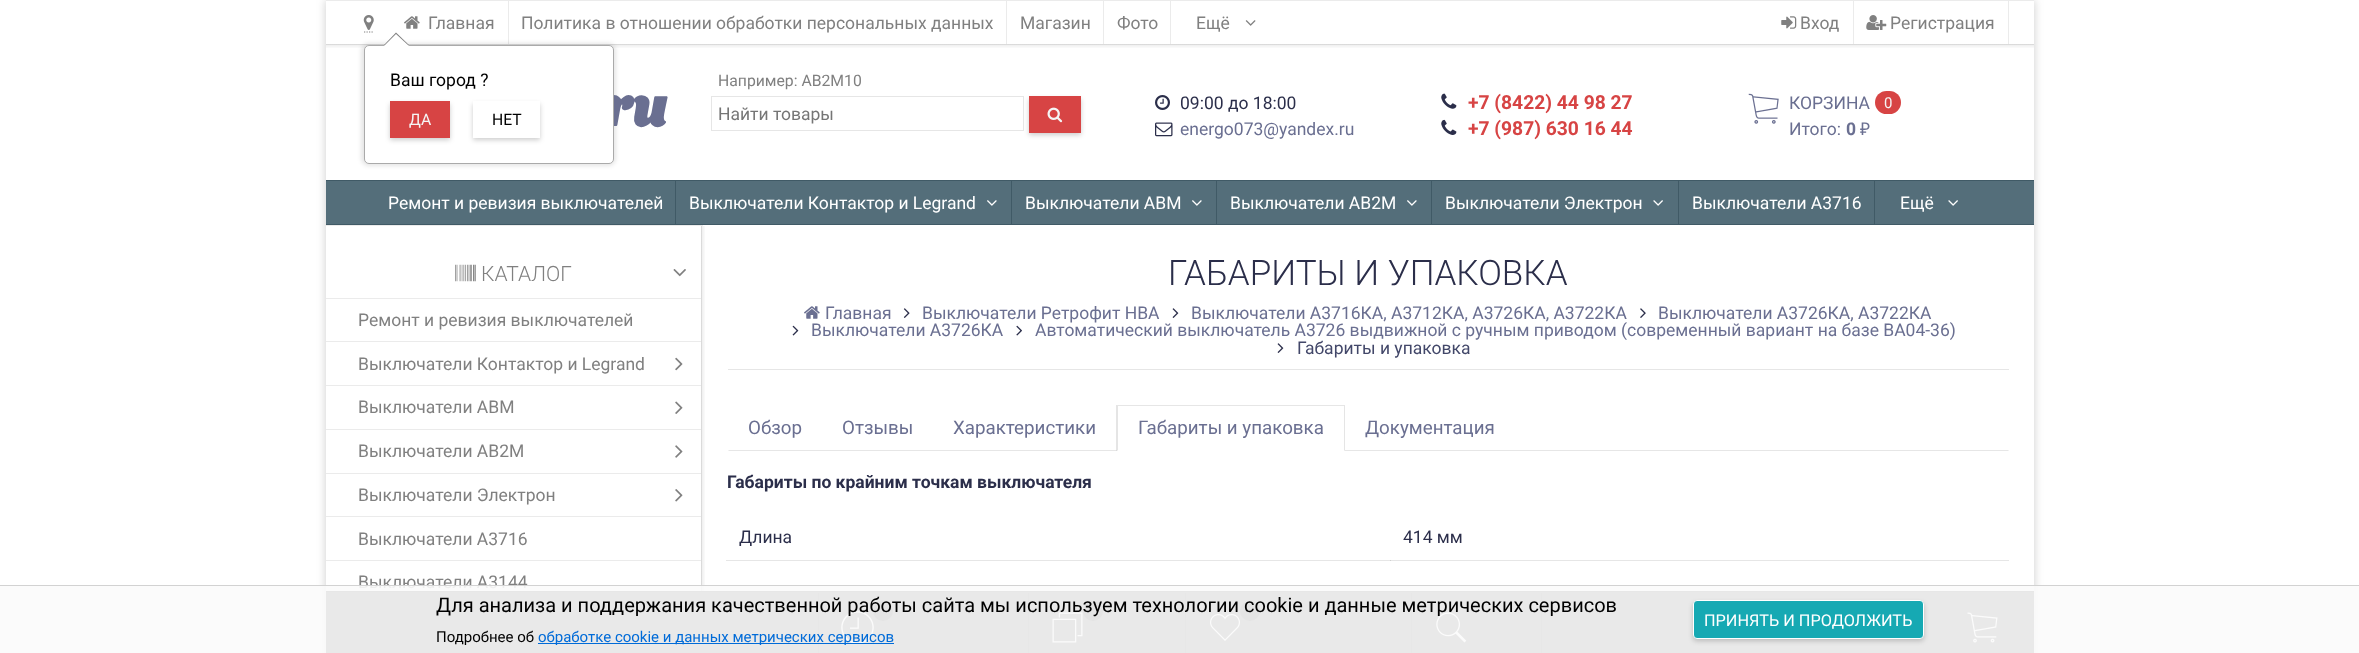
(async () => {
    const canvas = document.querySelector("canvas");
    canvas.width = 2359;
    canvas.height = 653;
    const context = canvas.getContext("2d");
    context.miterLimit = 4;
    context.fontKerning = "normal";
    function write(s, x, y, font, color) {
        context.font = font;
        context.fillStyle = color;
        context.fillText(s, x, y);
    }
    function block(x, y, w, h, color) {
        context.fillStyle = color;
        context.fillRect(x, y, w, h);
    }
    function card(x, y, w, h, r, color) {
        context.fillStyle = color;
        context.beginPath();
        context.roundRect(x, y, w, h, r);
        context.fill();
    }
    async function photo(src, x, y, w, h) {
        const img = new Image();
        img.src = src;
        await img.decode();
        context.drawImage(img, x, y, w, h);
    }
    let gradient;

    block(0, 0, 2359, 653, "rgb(255, 255, 255)");
    context.fillStyle = "rgba(0, 0, 0, 0.2)";
    context.filter = "blur(5px)";
    context.beginPath();
    context.rect(326, 0, 1708, 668);
    context.fill();
    context.filter = "none";
    block(326, 1, 1708, 652, "rgb(255, 255, 255)");
    block(726, 560, 1283, 1, "rgb(230, 230, 230)");
    block(726, 608, 1283, 1, "rgb(230, 230, 230)");
    block(326, 0, 1708, 1, "rgb(235, 235, 235)");
    block(326, 44, 1708, 1, "rgb(235, 235, 235)");
    block(508, 1, 1, 43, "rgb(235, 235, 235)");
    await photo("media/1.png", 404, 16, 16, 13);
    write("Главная", 428, 29, "17.5px Roboto", "rgb(128, 128, 128)");
    block(1006, 1, 1, 43, "rgb(235, 235, 235)");
    write("Политика в отношении обработки персональных данных", 521, 29, "17.5px Roboto", "rgb(128, 128, 128)");
    block(1103, 1, 1, 43, "rgb(235, 235, 235)");
    write("Магазин", 1020, 29, "17.5px Roboto", "rgb(128, 128, 128)");
    block(1170, 1, 1, 43, "rgb(235, 235, 235)");
    write("Фото", 1117, 29, "17.5px Roboto", "rgb(128, 128, 128)");
    write("Ещё", 1196, 29, "17.5px Roboto", "rgb(128, 128, 128)");
    await photo("media/2.png", 1245, 20, 11, 6);
    context.beginPath();
    context.moveTo(364, 32);
    context.lineTo(374, 32);
    context.strokeStyle = "rgb(128, 128, 128)";
    context.lineWidth = 1.2;
    context.setLineDash([1.25, 1.25]);
    context.stroke();
    await photo("media/3.png", 363, 15, 11, 15);
    gradient = context.createLinearGradient(1180, 44, 1180, 49);
    gradient.addColorStop(0, "rgba(0, 0, 0, 0.08)");
    gradient.addColorStop(1, "rgba(0, 0, 0, 0)");
    context.fillStyle = gradient;
    context.fillRect(326, 44, 1708, 4);
    context.fillStyle = "rgba(0, 0, 0, 0.1)";
    context.filter = "blur(2px)";
    context.beginPath();
    context.roundRect(361, 43, 255, 123, 8);
    context.fill();
    context.filter = "none";
    write("ru", 604, 126, "italic bold 56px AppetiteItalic", "rgb(106, 111, 145)");
    context.fillStyle = "rgb(255, 255, 255)";
    context.beginPath();
    context.roundRect(364.5, 45.5, 249, 118, 4.5);
    context.fill();
    context.strokeStyle = "rgb(170, 170, 170)";
    context.lineWidth = 1;
    context.setLineDash([]);
    context.stroke();
    context.fillStyle = "rgb(128, 128, 128)";
    context.beginPath();
    context.moveTo(409, 45);
    context.lineTo(384, 45);
    context.lineTo(396, 32.5);
    context.closePath();
    context.fill();
    context.fillStyle = "rgb(255, 255, 255)";
    context.beginPath();
    context.moveTo(409, 46);
    context.lineTo(384, 46);
    context.lineTo(396, 34);
    context.closePath();
    context.fill();
    write("Ваш город ?", 390, 86, "17.5px Roboto", "rgb(0, 0, 0)");
    context.fillStyle = "rgba(0, 0, 0, 0.2)";
    context.filter = "blur(2.5px)";
    context.beginPath();
    context.rect(390, 104, 60, 36);
    context.fill();
    context.filter = "none";
    block(390, 101, 60, 37, "rgb(215, 68, 68)");
    write("ДА", 409, 125, "15.75px Roboto", "rgb(245, 245, 245)");
    context.fillStyle = "rgba(0, 0, 0, 0.2)";
    context.filter = "blur(2.5px)";
    context.beginPath();
    context.rect(473, 104, 67, 36);
    context.fill();
    context.filter = "none";
    block(473, 101, 67, 37, "rgb(255, 255, 255)");
    write("НЕТ", 492, 125, "15.75px Roboto", "rgb(0, 0, 0)");
    block(1853, 1, 1, 43, "rgb(235, 235, 235)");
    await photo("media/4.png", 1781, 16, 16, 13);
    write("Вход", 1800, 29, "17.5px Roboto", "rgb(128, 128, 128)");
    block(2008, 1, 1, 43, "rgb(235, 235, 235)");
    await photo("media/5.png", 1866, 15, 21, 15);
    write("Регистрация", 1890, 29, "17.5px Roboto", "rgb(128, 128, 128)");
    write("Например: АВ2М10", 718, 86, "15.75px Roboto", "rgb(128, 128, 128)");
    context.strokeStyle = "rgb(230, 230, 230)";
    context.strokeRect(711.5, 96.5, 312, 34);
    write("Найти товары", 718, 120, "17.5px Roboto", "rgb(117, 117, 117)");
    context.fillStyle = "rgba(0, 0, 0, 0.2)";
    context.filter = "blur(2.5px)";
    context.beginPath();
    context.rect(1029, 99, 52, 36);
    context.fill();
    context.filter = "none";
    block(1029, 96, 52, 37, "rgb(215, 68, 68)");
    await photo("media/6.png", 1047, 107, 16, 16);
    await photo("media/7.png", 1155, 95, 15, 15);
    write("09:00 до 18:00", 1180, 109, "17.5px Roboto", "rgb(43, 46, 74)");
    await photo("media/8.png", 1155, 122, 18, 15);
    write("energo073@yandex.ru", 1180, 135, "17.5px Roboto", "rgb(106, 111, 145)");
    await photo("media/9.png", 1441, 93, 16, 16);
    write("+7 (8422) 44 98 27", 1468, 109, "bold 19.25px Roboto", "rgb(215, 68, 68)");
    await photo("media/10.png", 1441, 119, 16, 16);
    write("+7 (987) 630 16 44", 1468, 135, "bold 19.25px Roboto", "rgb(215, 68, 68)");
    await photo("media/11.png", 1748, 93, 31, 31);
    write("КОРЗИНА", 1789, 109, "17.5px Roboto", "rgb(106, 111, 145)");
    card(1875, 91, 26, 23, 11.5, "rgb(215, 68, 68)");
    write("0", 1884, 108, "15px Roboto", "rgb(245, 245, 245)");
    write("Итого:", 1789, 135, "17.5px Roboto", "rgb(106, 111, 145)");
    write("0", 1846, 135, "bold 17.5px Roboto", "rgb(106, 111, 145)");
    write("₽", 1860, 135, "17.5px Noto Sans", "rgb(106, 111, 145)");
    block(326, 181, 1708, 43, "rgb(84, 110, 122)");
    block(326, 180, 1708, 1, "rgb(64, 90, 102)");
    block(326, 224, 1708, 1, "rgb(64, 90, 102)");
    block(675, 181, 1, 43, "rgb(64, 90, 102)");
    write("Ремонт и ревизия выключателей", 388, 209, "17.5px Roboto", "rgb(255, 255, 255)");
    block(1011, 181, 1, 43, "rgb(64, 90, 102)");
    write("Выключатели Контактор и Legrand", 689, 209, "17.5px Roboto", "rgb(255, 255, 255)");
    await photo("media/12.png", 987, 200, 10, 6);
    block(1216, 181, 1, 43, "rgb(64, 90, 102)");
    write("Выключатели АВМ", 1025, 209, "17.5px Roboto", "rgb(255, 255, 255)");
    await photo("media/12.png", 1192, 200, 10, 6);
    block(1431, 181, 1, 43, "rgb(64, 90, 102)");
    write("Выключатели АВ2М", 1230, 209, "17.5px Roboto", "rgb(255, 255, 255)");
    await photo("media/12.png", 1407, 200, 10, 6);
    block(1678, 181, 1, 43, "rgb(64, 90, 102)");
    write("Выключатели Электрон", 1445, 209, "17.5px Roboto", "rgb(255, 255, 255)");
    await photo("media/13.png", 1653, 200, 10, 6);
    block(1874, 181, 1, 43, "rgb(64, 90, 102)");
    write("Выключатели А3716", 1692, 209, "17.5px Roboto", "rgb(255, 255, 255)");
    write("Ещё", 1900, 209, "17.5px Roboto", "rgb(255, 255, 255)");
    await photo("media/13.png", 1948, 200, 10, 6);
    block(326, 225, 377, 1, "rgb(235, 235, 235)");
    block(701, 225, 1, 428, "rgb(235, 235, 235)");
    await photo("media/14.png", 455, 264, 21, 18);
    write("КАТАЛОГ", 481, 281, "300 21px Roboto", "rgb(128, 128, 128)");
    await photo("media/15.png", 673, 269, 13, 8);
    block(326, 298, 375, 1, "rgb(235, 235, 235)");
    write("Ремонт и ревизия выключателей", 358, 326, "17.5px Roboto", "rgb(128, 128, 128)");
    block(326, 341, 375, 1, "rgb(235, 235, 235)");
    write("Выключатели Контактор и Legrand", 358, 370, "17.5px Roboto", "rgb(128, 128, 128)");
    await photo("media/16.png", 675, 357, 8, 14);
    block(326, 385, 375, 1, "rgb(235, 235, 235)");
    write("Выключатели АВМ", 358, 413, "17.5px Roboto", "rgb(128, 128, 128)");
    await photo("media/17.png", 675, 401, 8, 13);
    block(326, 429, 375, 1, "rgb(235, 235, 235)");
    write("Выключатели АВ2М", 358, 457, "17.5px Roboto", "rgb(128, 128, 128)");
    await photo("media/18.png", 675, 445, 8, 13);
    block(326, 473, 375, 1, "rgb(235, 235, 235)");
    write("Выключатели Электрон", 358, 501, "17.5px Roboto", "rgb(128, 128, 128)");
    await photo("media/19.png", 675, 489, 8, 13);
    block(326, 516, 375, 1, "rgb(235, 235, 235)");
    write("Выключатели А3716", 358, 545, "17.5px Roboto", "rgb(128, 128, 128)");
    block(326, 560, 375, 1, "rgb(235, 235, 235)");
    write("Выключатели А3144", 358, 588, "17.5px Roboto", "rgb(128, 128, 128)");
    block(326, 604, 375, 1, "rgb(235, 235, 235)");
    await photo("media/18.png", 675, 620, 8, 13);
    block(326, 648, 375, 1, "rgb(235, 235, 235)");
    gradient = context.createLinearGradient(701, 540, 706, 540);
    gradient.addColorStop(0, "rgba(0, 0, 0, 0.08)");
    gradient.addColorStop(1, "rgba(0, 0, 0, 0)");
    context.fillStyle = gradient;
    context.fillRect(701, 226, 4, 427);
    write("ГАБАРИТЫ И УПАКОВКА", 1168, 285, "300 35px Roboto", "rgb(43, 46, 74)");
    block(728, 369, 1281, 1, "rgb(230, 230, 230)");
    await photo("media/20.png", 804, 306, 16, 13);
    write("Главная", 825, 319, "17.5px Roboto", "rgb(106, 111, 145)");
    await photo("media/21.png", 903, 308, 7, 10);
    write("Выключатели Ретрофит НВА", 922, 319, "17.5px Roboto", "rgb(106, 111, 145)");
    await photo("media/22.png", 1172, 308, 7, 10);
    write("Выключатели А3716КА, А3712КА, А3726КА, А3722КА", 1191, 319, "17.5px Roboto", "rgb(106, 111, 145)");
    await photo("media/23.png", 1640, 308, 6, 10);
    write("Выключатели А3726КА, А3722КА", 1658, 319, "17.5px Roboto", "rgb(106, 111, 145)");
    await photo("media/24.png", 792, 325, 7, 11);
    write("Выключатели А3726КА", 811, 336, "17.5px Roboto", "rgb(106, 111, 145)");
    await photo("media/25.png", 1016, 325, 6, 11);
    write("Автоматический выключатель А3726 выдвижной с ручным приводом (современный вариант на базе ВА04-36)", 1035, 336, "17.5px Roboto", "rgb(106, 111, 145)");
    await photo("media/22.png", 1277, 343, 7, 10);
    write("Габариты и упаковка", 1297, 354, "17.5px Roboto", "rgb(66, 71, 105)");
    context.fillStyle = "rgb(230, 230, 230)";
    context.beginPath();
    context.moveTo(2009, 451);
    context.lineTo(728, 451);
    context.lineTo(729, 450);
    context.lineTo(2008, 450);
    context.closePath();
    context.fill();
    write("Обзор", 748, 434, "18.75px Roboto", "rgb(106, 111, 145)");
    write("Отзывы", 842, 434, "18.75px Roboto", "rgb(106, 111, 145)");
    write("Характеристики", 953, 434, "18.75px Roboto", "rgb(106, 111, 145)");
    context.fillStyle = "rgb(230, 230, 230)";
    context.beginPath();
    context.moveTo(1116, 405);
    context.lineTo(1345, 405);
    context.lineTo(1344, 406);
    context.lineTo(1118, 406);
    context.closePath();
    context.fill();
    context.fillStyle = "rgba(0, 0, 0, 0.1)";
    context.beginPath();
    context.moveTo(1345, 405);
    context.lineTo(1345, 451);
    context.lineTo(1344, 450);
    context.lineTo(1344, 406);
    context.closePath();
    context.fill();
    context.fillStyle = "rgb(255, 255, 255)";
    context.beginPath();
    context.moveTo(1345, 451);
    context.lineTo(1116, 451);
    context.lineTo(1118, 450);
    context.lineTo(1344, 450);
    context.closePath();
    context.fill();
    context.fillStyle = "rgba(0, 0, 0, 0.1)";
    context.beginPath();
    context.moveTo(1116, 451);
    context.lineTo(1116, 405);
    context.lineTo(1118, 406);
    context.lineTo(1118, 450);
    context.closePath();
    context.fill();
    write("Габариты и упаковка", 1138, 434, "18.75px Roboto", "rgb(106, 111, 145)");
    write("Документация", 1365, 434, "18.75px Roboto", "rgb(106, 111, 145)");
    write("Габариты по крайним точкам выключателя", 727, 488, "bold 17.5px Roboto", "rgb(43, 46, 74)");
    write("Длина", 739, 543, "17.5px Roboto", "rgb(43, 46, 74)");
    block(1390, 560, 1, 1, "rgb(207, 207, 207)");
    write("414 мм", 1403, 543, "17.5px Roboto", "rgb(43, 46, 74)");
    block(1390, 608, 1, 1, "rgb(207, 207, 207)");
    block(326, 591, 1708, 62, "rgba(66, 66, 66, 0.95)");
    block(326, 591, 1708, 1, "rgba(51, 51, 51, 0.95)");
    block(818, 593, 1, 60, "rgb(52, 52, 52)");
    await photo("media/26.png", 841, 611, 33, 32);
    context.fillStyle = "rgb(21, 21, 21)";
    context.beginPath();
    context.arc(883, 611, 10, 0, Math.PI * 2);
    context.fill();
    block(1028, 593, 1, 60, "rgb(52, 52, 52)");
    await photo("media/27.png", 1052, 612, 31, 31);
    context.fillStyle = "rgb(21, 21, 21)";
    context.beginPath();
    context.arc(1093, 611, 10, 0, Math.PI * 2);
    context.fill();
    block(1185, 593, 1, 60, "rgb(52, 52, 52)");
    context.fillStyle = "rgb(21, 21, 21)";
    context.beginPath();
    context.arc(1250, 611, 10, 0, Math.PI * 2);
    context.fill();
    await photo("media/28.png", 1210, 614, 30, 27);
    block(1541, 593, 1, 60, "rgb(52, 52, 52)");
    block(1411, 593, 1, 60, "rgba(51, 51, 51, 0.95)");
    await photo("media/29.png", 1436, 612, 31, 31);
    await photo("media/30.png", 1967, 612, 31, 31);
    block(0, 586, 2359, 67, "rgba(251, 251, 251, 0.9)");
    block(0, 585, 2359, 1, "rgb(210, 210, 210)");
    write("Для анализа и поддержания качественной работы сайта мы используем технологии cookie и данные метрических сервисов", 436, 612, "20px Roboto", "rgb(0, 0, 0)");
    write("Подробнее об", 436, 642, "15px Roboto", "rgb(0, 0, 0)");
    block(538, 643, 356, 1, "rgb(0, 107, 216)");
    write("обработке cookie и данных метрических сервисов", 538, 642, "15px Roboto", "rgb(0, 107, 216)");
    context.fillStyle = "rgba(0, 0, 0, 0.2)";
    context.filter = "blur(2.5px)";
    context.beginPath();
    context.roundRect(1693, 603, 231, 38, 4);
    context.fill();
    context.filter = "none";
    context.fillStyle = "rgb(22, 169, 179)";
    context.beginPath();
    context.roundRect(1693.5, 600.5, 230, 38, 3.5);
    context.fill();
    context.strokeStyle = "rgb(255, 255, 255)";
    context.stroke();
    write("ПРИНЯТЬ И ПРОДОЛЖИТЬ", 1704, 626, "16.25px Roboto", "rgb(255, 255, 255)");
})();
